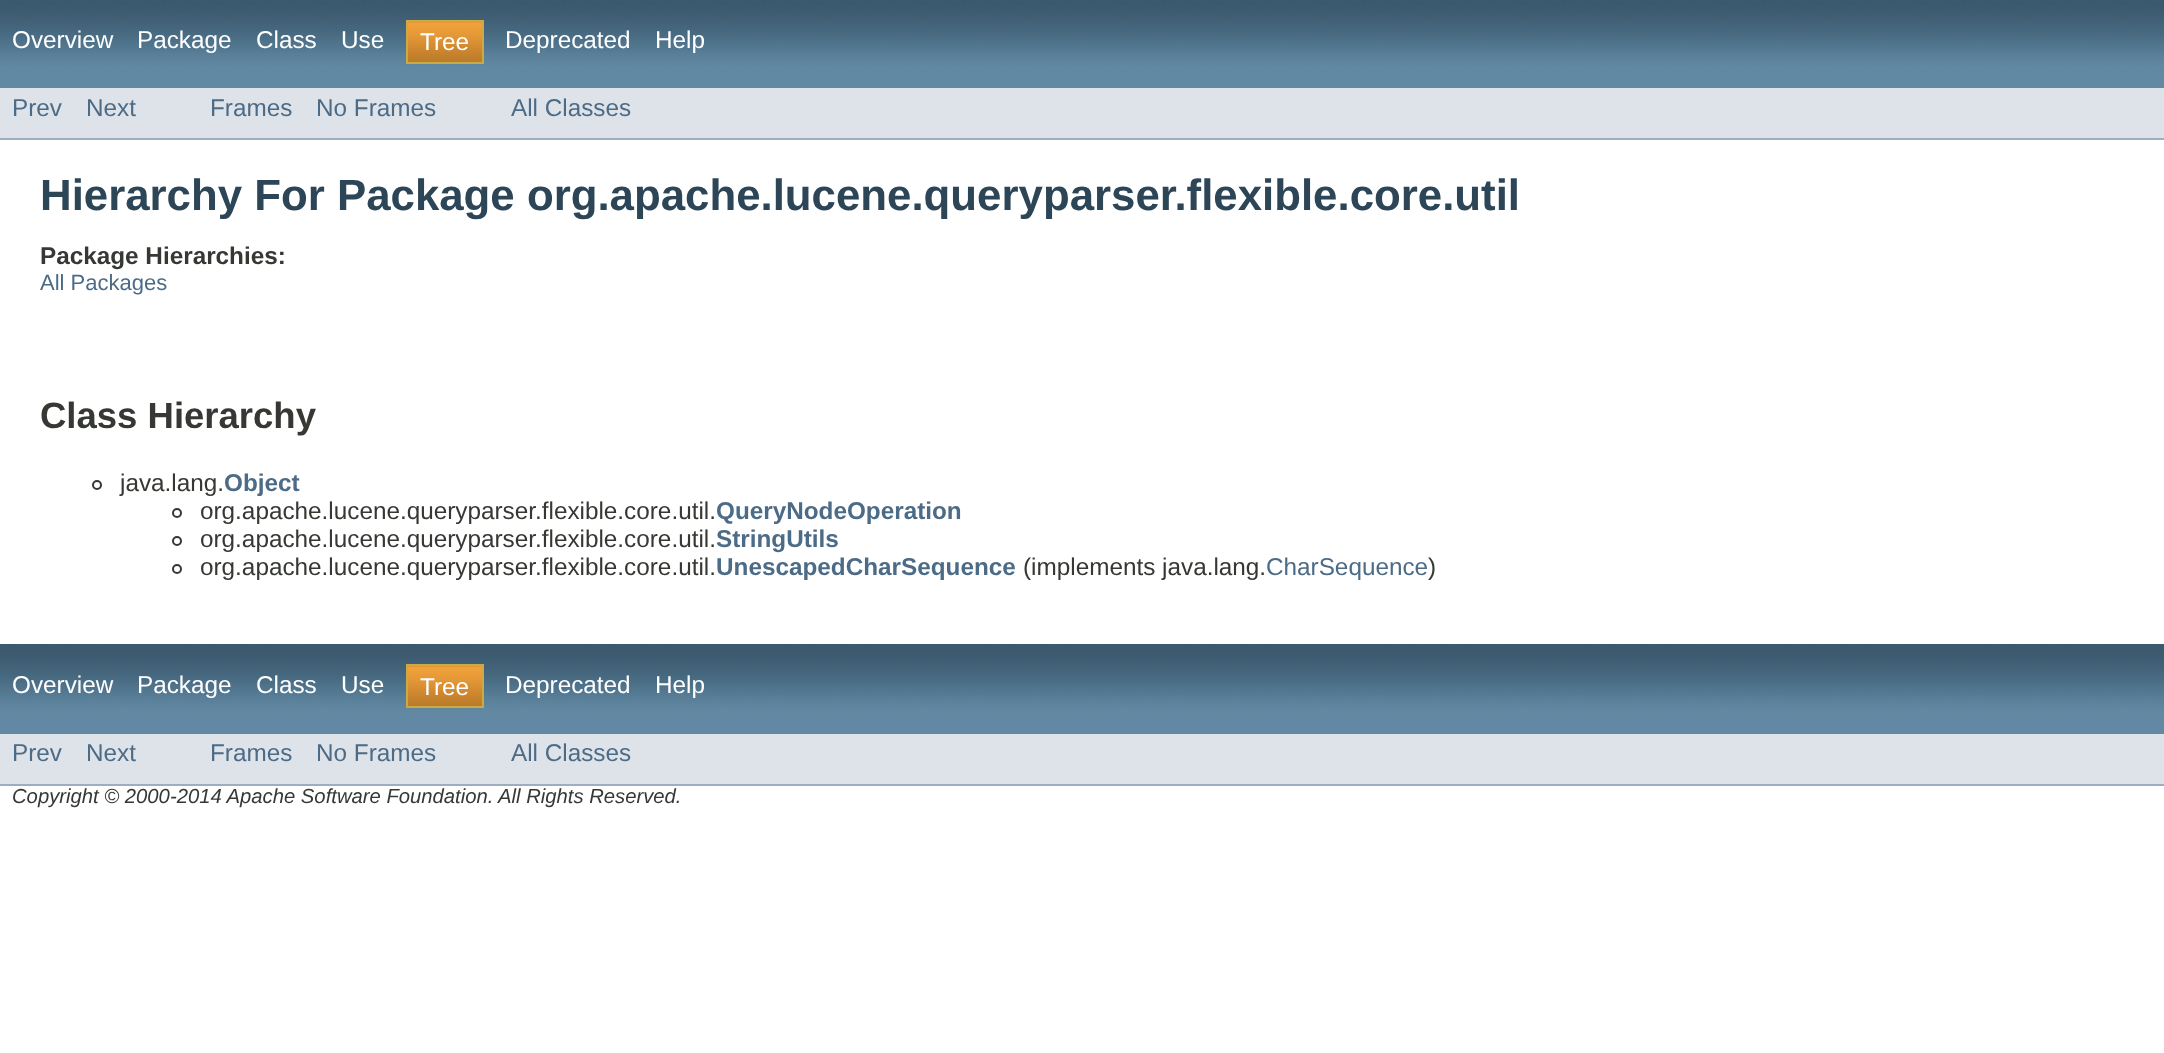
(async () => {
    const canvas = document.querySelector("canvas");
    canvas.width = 2164;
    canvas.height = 1053;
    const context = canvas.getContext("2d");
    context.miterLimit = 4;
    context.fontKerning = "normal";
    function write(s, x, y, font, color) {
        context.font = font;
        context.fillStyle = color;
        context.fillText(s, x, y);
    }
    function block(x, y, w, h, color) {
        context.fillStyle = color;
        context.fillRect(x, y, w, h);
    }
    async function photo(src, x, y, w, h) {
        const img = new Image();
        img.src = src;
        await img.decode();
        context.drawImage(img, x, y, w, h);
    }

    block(0, 0, 2164, 1053, "rgb(255, 255, 255)");
    await photo("media/1.png", 0, 0, 2164, 88);
    write("Overview", 12, 48, "24.3px Liberation Sans", "rgb(255, 255, 255)");
    write("Package", 137, 48, "24.3px Liberation Sans", "rgb(255, 255, 255)");
    write("Class", 256, 48, "24.3px Liberation Sans", "rgb(255, 255, 255)");
    write("Use", 341, 48, "24.3px Liberation Sans", "rgb(255, 255, 255)");
    await photo("media/2.png", 408, 22, 74, 40);
    context.strokeStyle = "rgb(201, 170, 68)";
    context.lineWidth = 2;
    context.strokeRect(407, 21, 76, 42);
    write("Tree", 420, 50, "24.3px Liberation Sans", "rgb(255, 255, 255)");
    write("Deprecated", 505, 48, "24.3px Liberation Sans", "rgb(255, 255, 255)");
    write("Help", 655, 48, "24.3px Liberation Sans", "rgb(255, 255, 255)");
    block(0, 88, 2164, 50, "rgb(222, 227, 233)");
    block(0, 138, 2164, 2, "rgb(158, 173, 192)");
    write("Prev", 12, 116, "24.3px Liberation Sans", "rgb(76, 107, 135)");
    write("Next", 86, 116, "24.3px Liberation Sans", "rgb(76, 107, 135)");
    write("Frames", 210, 116, "24.3px Liberation Sans", "rgb(76, 107, 135)");
    write("No Frames", 316, 116, "24.3px Liberation Sans", "rgb(76, 107, 135)");
    write("All Classes", 511, 116, "24.3px Liberation Sans", "rgb(76, 107, 135)");
    write("Hierarchy For Package org.apache.lucene.queryparser.flexible.core.util", 40, 210, "bold 43.8px Liberation Sans", "rgb(44, 69, 87)");
    write("Package Hierarchies:", 40, 264, "bold 24.3px Liberation Sans", "rgb(53, 56, 51)");
    write("All Packages", 40, 290, "22px Liberation Sans", "rgb(76, 107, 135)");
    write("Class Hierarchy", 40, 428, "bold 36.5px Liberation Sans", "rgb(53, 56, 51)");
    context.beginPath();
    context.arc(97, 485, 4, 0, Math.PI * 2);
    context.strokeStyle = "rgb(53, 56, 51)";
    context.stroke();
    write("java.lang.", 120, 491, "24.3px Liberation Sans", "rgb(53, 56, 51)");
    write("Object", 224, 491, "bold 24.3px Liberation Sans", "rgb(76, 107, 135)");
    context.beginPath();
    context.arc(177, 513, 4, 0, Math.PI * 2);
    context.stroke();
    write("org.apache.lucene.queryparser.flexible.core.util.", 200, 519, "24.3px Liberation Sans", "rgb(53, 56, 51)");
    write("QueryNodeOperation", 716, 519, "bold 24.3px Liberation Sans", "rgb(76, 107, 135)");
    context.beginPath();
    context.arc(177, 541, 4, 0, Math.PI * 2);
    context.stroke();
    write("org.apache.lucene.queryparser.flexible.core.util.", 200, 547, "24.3px Liberation Sans", "rgb(53, 56, 51)");
    write("StringUtils", 716, 547, "bold 24.3px Liberation Sans", "rgb(76, 107, 135)");
    context.beginPath();
    context.arc(177, 569, 4, 0, Math.PI * 2);
    context.stroke();
    write("org.apache.lucene.queryparser.flexible.core.util.", 200, 575, "24.3px Liberation Sans", "rgb(53, 56, 51)");
    write("UnescapedCharSequence", 716, 575, "bold 24.3px Liberation Sans", "rgb(76, 107, 135)");
    write("(implements java.lang.", 1023, 575, "24.3px Liberation Sans", "rgb(53, 56, 51)");
    write("CharSequence", 1266, 575, "24.3px Liberation Sans", "rgb(76, 107, 135)");
    write(")", 1428, 575, "24.3px Liberation Sans", "rgb(53, 56, 51)");
    await photo("media/3.png", 0, 644, 2164, 90);
    write("Overview", 12, 693, "24.3px Liberation Sans", "rgb(255, 255, 255)");
    write("Package", 137, 693, "24.3px Liberation Sans", "rgb(255, 255, 255)");
    write("Class", 256, 693, "24.3px Liberation Sans", "rgb(255, 255, 255)");
    write("Use", 341, 693, "24.3px Liberation Sans", "rgb(255, 255, 255)");
    await photo("media/2.png", 408, 666, 74, 40);
    context.strokeStyle = "rgb(201, 170, 68)";
    context.strokeRect(407, 665, 76, 42);
    write("Tree", 420, 695, "24.3px Liberation Sans", "rgb(255, 255, 255)");
    write("Deprecated", 505, 693, "24.3px Liberation Sans", "rgb(255, 255, 255)");
    write("Help", 655, 693, "24.3px Liberation Sans", "rgb(255, 255, 255)");
    block(0, 734, 2164, 50, "rgb(222, 227, 233)");
    block(0, 784, 2164, 2, "rgb(158, 173, 192)");
    write("Prev", 12, 761, "24.3px Liberation Sans", "rgb(76, 107, 135)");
    write("Next", 86, 761, "24.3px Liberation Sans", "rgb(76, 107, 135)");
    write("Frames", 210, 761, "24.3px Liberation Sans", "rgb(76, 107, 135)");
    write("No Frames", 316, 761, "24.3px Liberation Sans", "rgb(76, 107, 135)");
    write("All Classes", 511, 761, "24.3px Liberation Sans", "rgb(76, 107, 135)");
    write("Copyright © 2000-2014 Apache Software Foundation.", 12, 803, "italic 20.25px Liberation Sans", "rgb(53, 56, 51)");
    write("All Rights Reserved.", 498, 803, "italic 20.25px Liberation Sans", "rgb(53, 56, 51)");
})();
